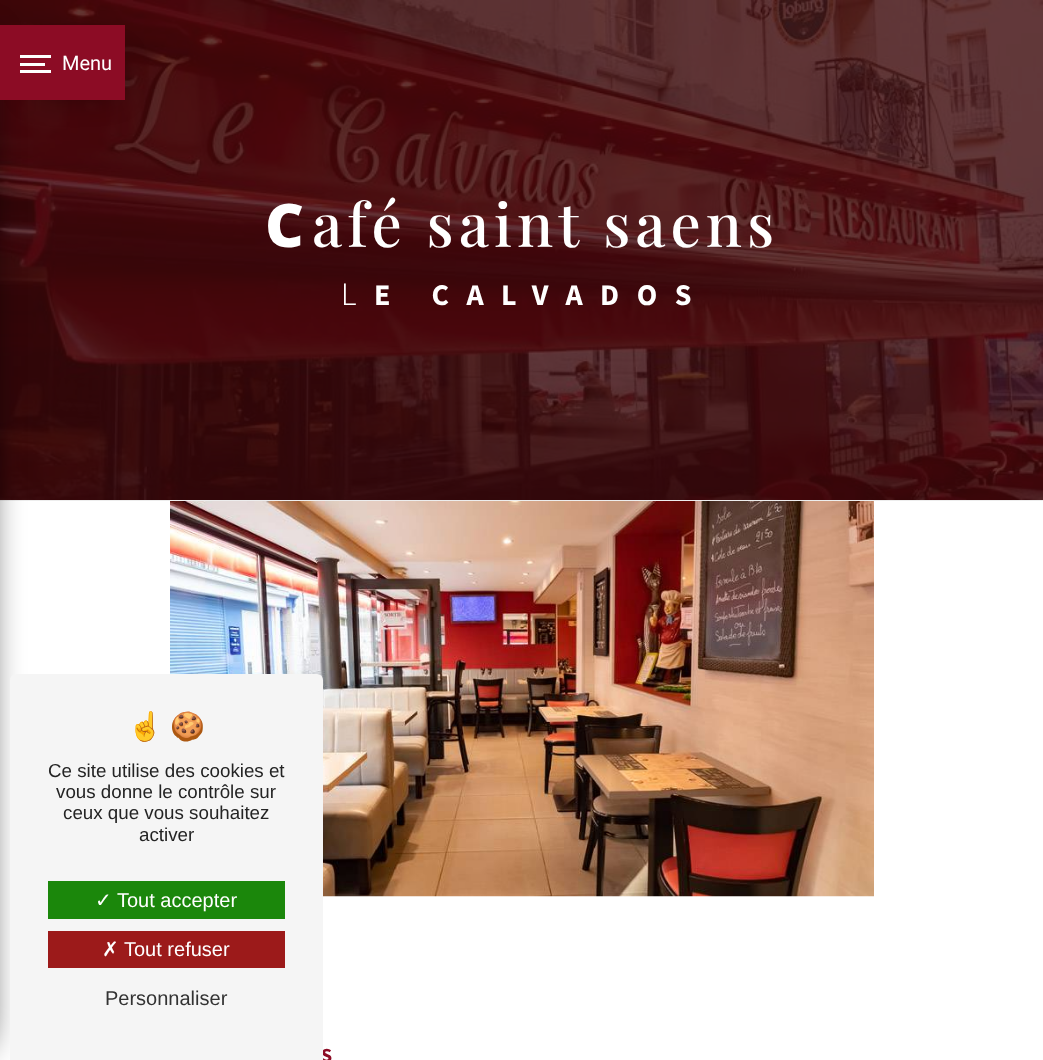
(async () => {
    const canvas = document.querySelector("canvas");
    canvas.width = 1043;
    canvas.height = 1060;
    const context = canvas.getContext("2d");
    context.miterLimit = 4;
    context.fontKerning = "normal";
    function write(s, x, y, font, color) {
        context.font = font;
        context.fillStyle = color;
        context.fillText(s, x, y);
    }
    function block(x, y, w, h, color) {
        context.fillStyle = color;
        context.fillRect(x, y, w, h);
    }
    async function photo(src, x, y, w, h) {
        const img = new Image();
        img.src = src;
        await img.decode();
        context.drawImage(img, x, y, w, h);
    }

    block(0, 0, 1043, 1060, "rgb(255, 255, 255)");
    await photo("media/1.png", 0, 0, 1043, 500);
    block(0, 500, 1043, 1, "rgb(237, 237, 237)");
    context.fillStyle = "rgb(0, 0, 0)";
    context.filter = "blur(18px)";
    context.beginPath();
    context.rect(-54, 41, 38, 1003);
    context.fill();
    context.filter = "none";
    context.filter = "blur(18px)";
    context.beginPath();
    context.rect(41, 66, 68, 18);
    context.fill();
    context.filter = "none";
    block(0, 25, 125, 75, "rgb(140, 12, 37)");
    block(20, 55, 31, 3, "rgb(255, 255, 255)");
    write("Menu", 62, 70, "20px Roboto", "rgb(255, 255, 255)");
    block(20, 63, 25, 3, "rgb(255, 255, 255)");
    block(20, 70, 31, 3, "rgb(255, 255, 255)");
    context.letterSpacing = "5px";
    write("C", 265, 247, "900 60px Noto Sans", "rgb(255, 255, 255)");
    write("afé saint saens", 312, 247, "500 60px Playfair Display", "rgb(255, 255, 255)");
    context.letterSpacing = "17.5px";
    write("L", 341, 305, "300 30px Noto Sans", "rgb(255, 255, 255)");
    write("E CALVADOS", 374, 305, "bold 30px Source Sans Pro", "rgb(255, 255, 255)");
    await photo("media/2.png", 170, 501, 704, 396);
    write("S", 321, 1062, "bold 20px Source Sans Pro", "rgb(140, 12, 37)");
    context.fillStyle = "rgb(245, 245, 245)";
    context.beginPath();
    context.roundRect(10, 674, 313, 386, [6, 6, 0, 0]);
    context.fill();
    context.letterSpacing = "0px";
    write("☝", 128, 736, "28px Noto Color Emoji", "rgb(36, 36, 36)");
    write("🍪", 170, 736, "28px Noto Color Emoji", "rgb(36, 36, 36)");
    write("Ce site utilise des cookies et", 48, 777, "18.75px Liberation Sans", "rgb(36, 36, 36)");
    write("vous donne le contrôle sur", 56, 798, "18.75px Liberation Sans", "rgb(36, 36, 36)");
    write("ceux que vous souhaitez", 63, 819, "18.75px Liberation Sans", "rgb(36, 36, 36)");
    write("activer", 139, 841, "18.75px Liberation Sans", "rgb(36, 36, 36)");
    block(48, 881, 237, 38, "rgb(27, 135, 11)");
    write("✓", 95, 907, "20px DejaVu Sans", "rgb(255, 255, 255)");
    write("Tout accepter", 117, 907, "20px Liberation Sans", "rgb(255, 255, 255)");
    block(48, 931, 237, 37, "rgb(156, 26, 26)");
    write("✗", 102, 956, "20px DejaVu Sans", "rgb(255, 255, 255)");
    write("Tout refuser", 124, 956, "20px Liberation Sans", "rgb(255, 255, 255)");
    write("Personnaliser", 105, 1005, "20px Liberation Sans", "rgb(51, 51, 51)");
})();
